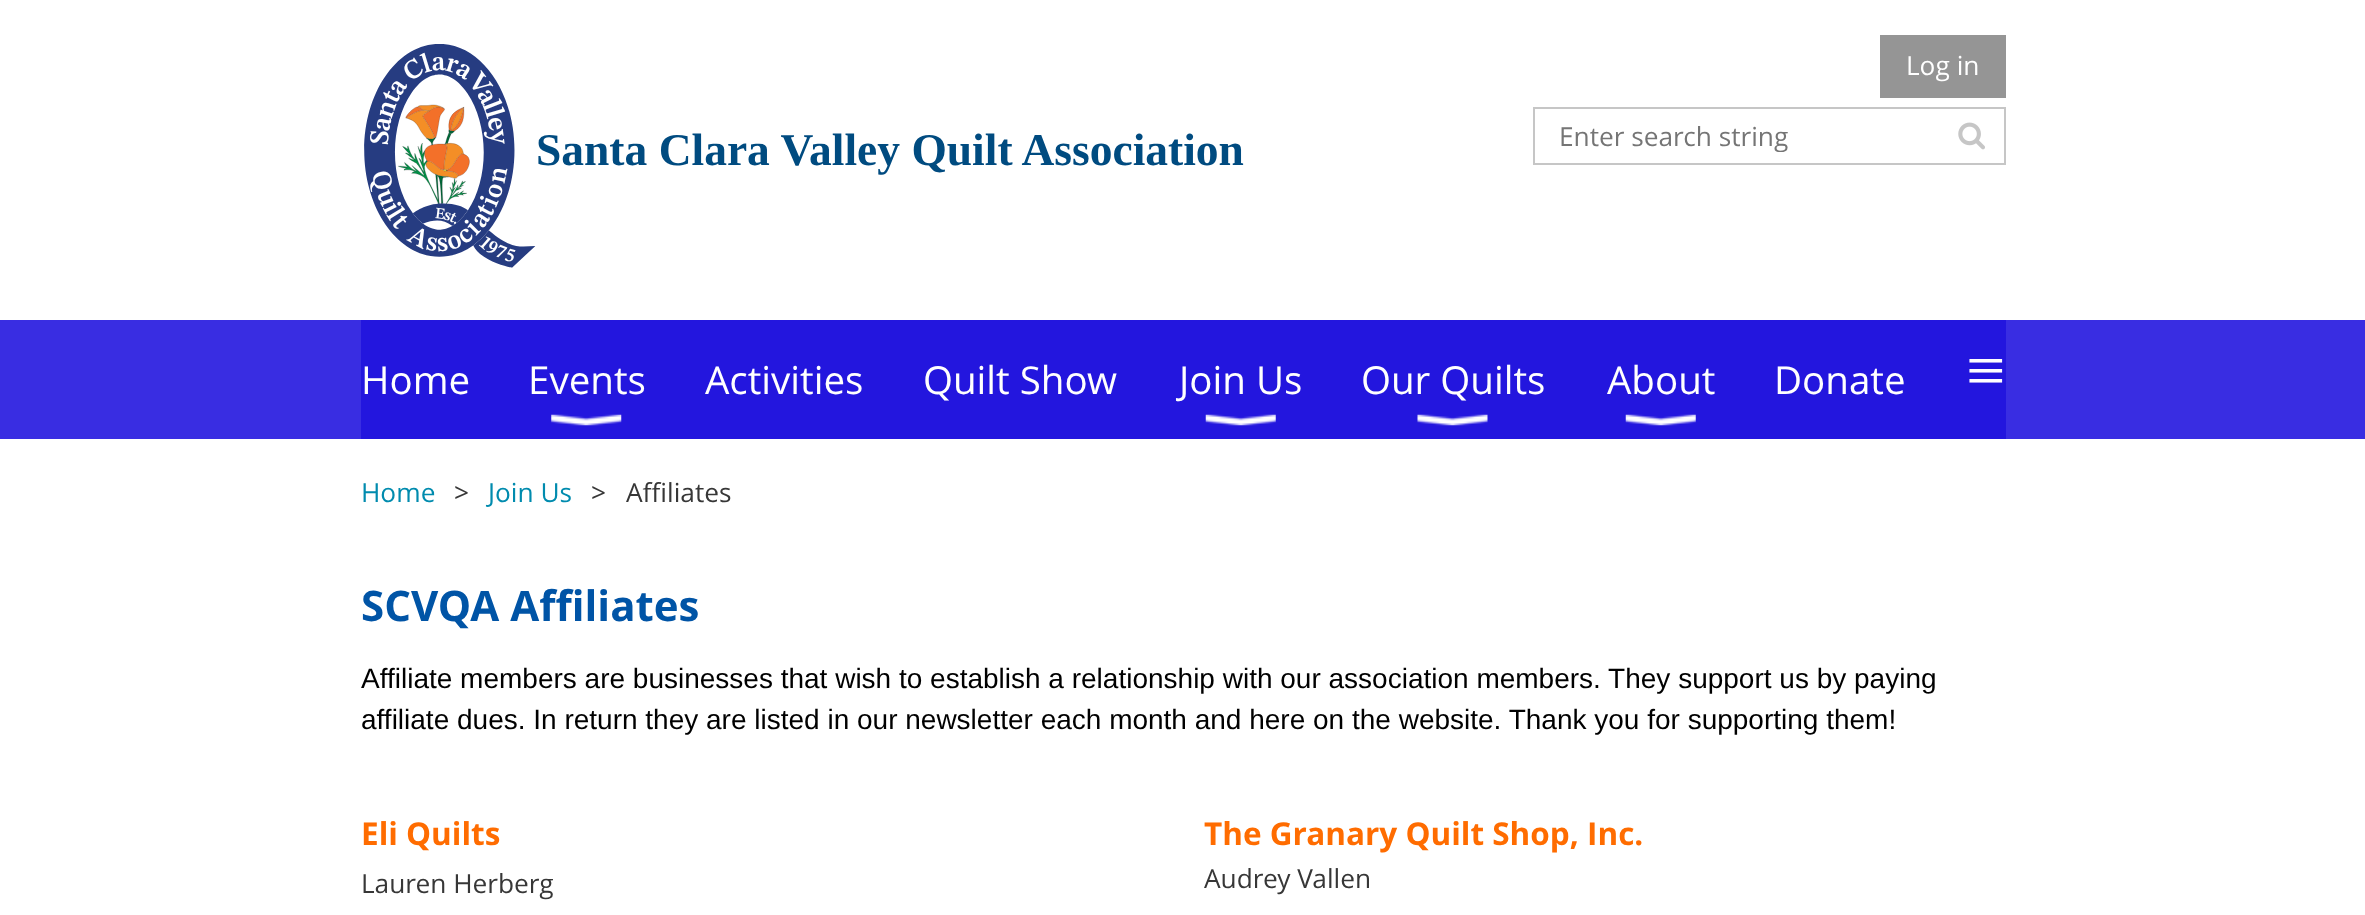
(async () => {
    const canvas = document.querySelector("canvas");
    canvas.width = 2365;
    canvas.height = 915;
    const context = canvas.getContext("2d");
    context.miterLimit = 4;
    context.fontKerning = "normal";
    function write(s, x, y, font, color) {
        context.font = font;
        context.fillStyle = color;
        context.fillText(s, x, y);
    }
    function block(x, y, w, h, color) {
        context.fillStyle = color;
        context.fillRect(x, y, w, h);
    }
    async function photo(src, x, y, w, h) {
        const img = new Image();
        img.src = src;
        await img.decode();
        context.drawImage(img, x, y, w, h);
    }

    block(0, 0, 2365, 915, "rgb(255, 255, 255)");
    await photo("media/1.png", 364, 44, 172, 224);
    write("Santa Clara Valley Quilt Association", 536, 165, "bold 45.5px Liberation Serif", "rgb(0, 75, 128)");
    block(1880, 35, 126, 63, "rgb(149, 149, 149)");
    write("Log in", 1906, 75, "26.25px Open Sans", "rgb(255, 255, 255)");
    context.strokeStyle = "rgb(198, 198, 198)";
    context.lineWidth = 2;
    context.strokeRect(1534, 108, 471, 56);
    context.save();
    context.beginPath();
    context.rect(1559, 117, 384, 35);
    context.clip();
    write("Enter search string", 1559, 146, "26.25px Open Sans", "rgb(117, 117, 117)");
    context.restore();
    await photo("media/2.png", 1958, 122, 27, 28);
    block(0, 320, 2365, 119, "rgb(57, 45, 226)");
    block(361, 320, 1645, 119, "rgb(35, 22, 222)");
    write("Home", 361, 394, "38.5px Open Sans", "rgb(255, 255, 255)");
    write("Events", 528, 394, "38.5px Open Sans", "rgb(255, 255, 255)");
    await photo("media/3.png", 551, 414, 71, 12);
    write("Activities", 705, 394, "38.5px Open Sans", "rgb(255, 255, 255)");
    write("Quilt Show", 923, 394, "38.5px Open Sans", "rgb(255, 255, 255)");
    write("Join Us", 1179, 394, "38.5px Open Sans", "rgb(255, 255, 255)");
    await photo("media/4.png", 1205, 414, 71, 12);
    write("Our Quilts", 1361, 394, "38.5px Open Sans", "rgb(255, 255, 255)");
    await photo("media/5.png", 1417, 414, 71, 12);
    write("About", 1607, 394, "38.5px Open Sans", "rgb(255, 255, 255)");
    await photo("media/6.png", 1625, 414, 71, 12);
    write("Donate", 1774, 394, "38.5px Open Sans", "rgb(255, 255, 255)");
    write("≡", 1966, 394, "70px Liberation Serif", "rgb(255, 255, 255)");
    write("Home", 361, 502, "26.25px Open Sans", "rgb(0, 139, 174)");
    write(">", 454, 502, "26.25px Open Sans", "rgb(55, 55, 55)");
    write("Join Us", 488, 502, "26.25px Open Sans", "rgb(0, 139, 174)");
    write(">", 591, 502, "26.25px Open Sans", "rgb(55, 55, 55)");
    write("Affiliates", 626, 502, "26.25px Open Sans", "rgb(55, 55, 55)");
    write("SCVQA Affiliates", 361, 621, "bold 42px Open Sans", "rgb(0, 84, 166)");
    write("Affiliate members are businesses that wish to establish a relationship with our association members. They support us by paying", 361, 688, "28px Liberation Sans", "rgb(0, 0, 0)");
    write("affiliate dues. In return they are listed in our newsletter each month and here on the website. Thank you for supporting them!", 361, 729, "28px Liberation Sans", "rgb(0, 0, 0)");
    write("Eli Quilts", 361, 845, "bold 31.5px Open Sans", "rgb(255, 108, 0)");
    write("Lauren Herberg", 361, 893, "26.25px Open Sans", "rgb(55, 55, 55)");
    write("The Granary Quilt Shop, Inc.", 1204, 845, "bold 31.5px Open Sans", "rgb(255, 108, 0)");
    write("Audrey Vallen", 1204, 888, "26.25px Open Sans", "rgb(55, 55, 55)");
})();
